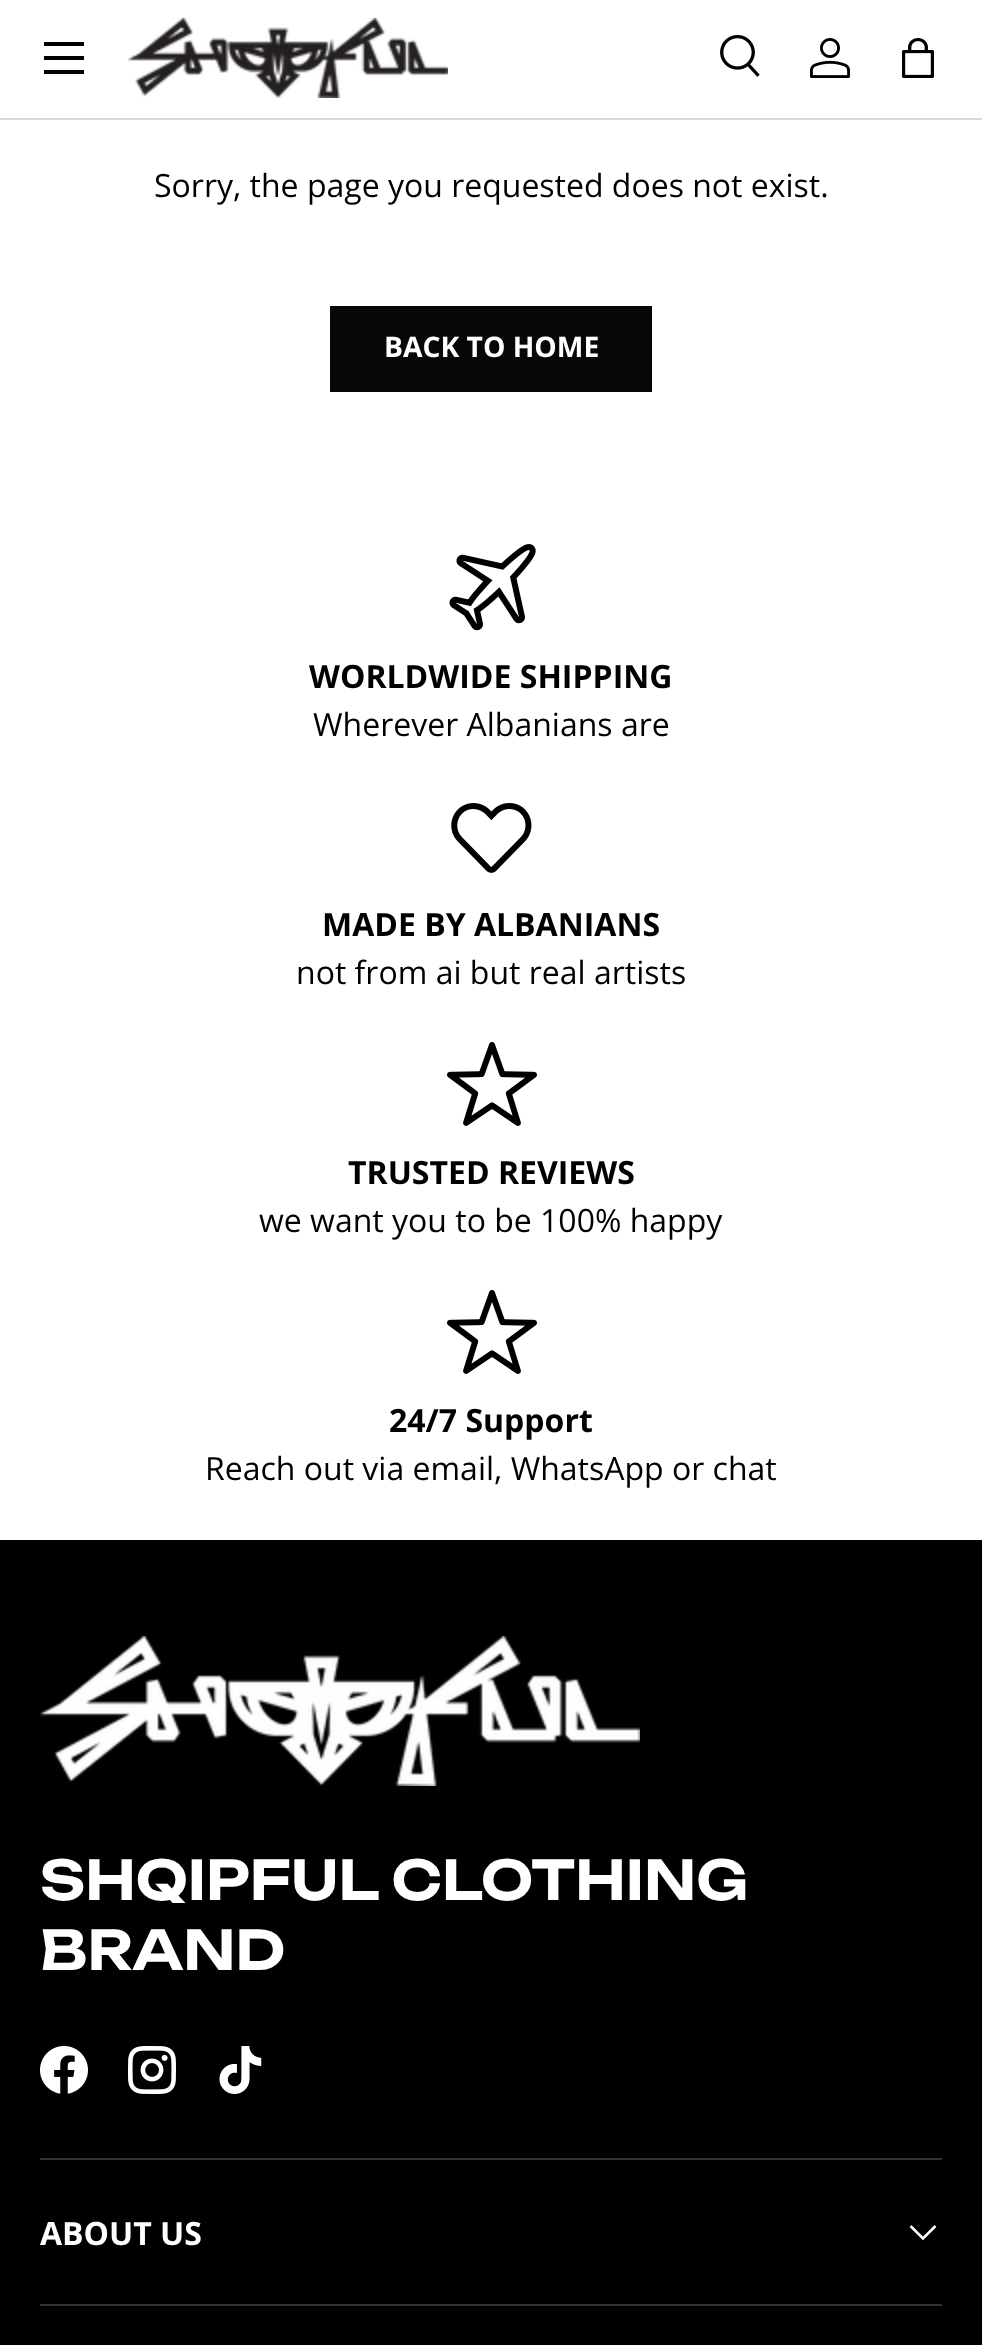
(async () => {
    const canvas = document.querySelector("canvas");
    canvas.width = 982;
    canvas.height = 2345;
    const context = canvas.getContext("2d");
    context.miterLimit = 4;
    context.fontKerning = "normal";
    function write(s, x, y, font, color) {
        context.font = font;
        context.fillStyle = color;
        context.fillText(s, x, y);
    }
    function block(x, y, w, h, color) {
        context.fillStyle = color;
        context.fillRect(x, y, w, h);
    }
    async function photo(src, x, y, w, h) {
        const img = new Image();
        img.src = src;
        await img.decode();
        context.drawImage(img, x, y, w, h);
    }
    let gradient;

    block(0, 0, 982, 2345, "rgb(255, 255, 255)");
    block(0, 118, 982, 2, "rgb(217, 217, 217)");
    block(44, 42, 40, 4, "rgb(0, 0, 0)");
    block(44, 70, 40, 4, "rgb(0, 0, 0)");
    block(44, 56, 40, 4, "rgb(0, 0, 0)");
    await photo("media/1.png", 128, 18, 320, 80);
    await photo("media/2.png", 720, 35, 40, 42);
    await photo("media/3.png", 810, 38, 40, 40);
    await photo("media/4.png", 902, 38, 32, 40);
    write("Sorry, the page you requested does not exist.", 154, 197, "32px Open Sans", "rgb(0, 0, 0)");
    gradient = context.createLinearGradient(-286, 235, 632, 463);
    gradient.addColorStop(0.6, "rgb(52, 52, 52)");
    gradient.addColorStop(0.6, "rgb(7, 7, 7)");
    gradient.addColorStop(1, "rgb(7, 7, 7)");
    context.fillStyle = gradient;
    context.fillRect(332, 308, 318, 82);
    context.strokeStyle = "rgb(7, 7, 7)";
    context.lineWidth = 2;
    context.strokeRect(331, 307, 320, 84);
    write("BACK TO HOME", 384, 357, "bold 28.25px Open Sans", "rgb(255, 255, 255)");
    await photo("media/5.png", 449, 544, 87, 87);
    write("WORLDWIDE SHIPPING", 309, 688, "bold 32px Open Sans", "rgb(0, 0, 0)");
    write("Wherever Albanians are", 313, 736, "32px Open Sans", "rgb(0, 0, 0)");
    await photo("media/6.png", 451, 803, 81, 70);
    write("MADE BY ALBANIANS", 322, 936, "bold 32px Open Sans", "rgb(0, 0, 0)");
    write("not from ai but real artists", 296, 984, "32px Open Sans", "rgb(0, 0, 0)");
    await photo("media/7.png", 447, 1042, 90, 84);
    write("TRUSTED REVIEWS", 348, 1184, "bold 32px Open Sans", "rgb(0, 0, 0)");
    write("we want you to be 100% happy", 259, 1232, "32px Open Sans", "rgb(0, 0, 0)");
    await photo("media/7.png", 447, 1290, 90, 84);
    write("24/7 Support", 389, 1432, "bold 32px Open Sans", "rgb(0, 0, 0)");
    write("Reach out via email, WhatsApp or chat", 205, 1480, "32px Open Sans", "rgb(0, 0, 0)");
    block(0, 1540, 982, 805, "rgb(0, 0, 0)");
    await photo("media/8.png", 40, 1636, 600, 150);
    write("SHQIPFUL CLOTHING", 40, 1900, "600 54.25px Unbounded", "rgb(255, 255, 255)");
    write("BRAND", 40, 1970, "600 54.25px Unbounded", "rgb(255, 255, 255)");
    await photo("media/9.png", 40, 2046, 48, 48);
    await photo("media/10.png", 128, 2046, 48, 48);
    await photo("media/11.png", 219, 2046, 43, 48);
    block(40, 2158, 902, 2, "rgb(51, 51, 51)");
    block(40, 2304, 902, 2, "rgb(51, 51, 51)");
    write("ABOUT US", 40, 2245, "bold 32px Open Sans", "rgb(255, 255, 255)");
    context.beginPath();
    context.moveTo(935.5, 2226);
    context.lineTo(923, 2238.5);
    context.lineTo(910.5, 2226);
    context.strokeStyle = "rgb(255, 255, 255)";
    context.lineWidth = 2.5;
    context.stroke();
})();
